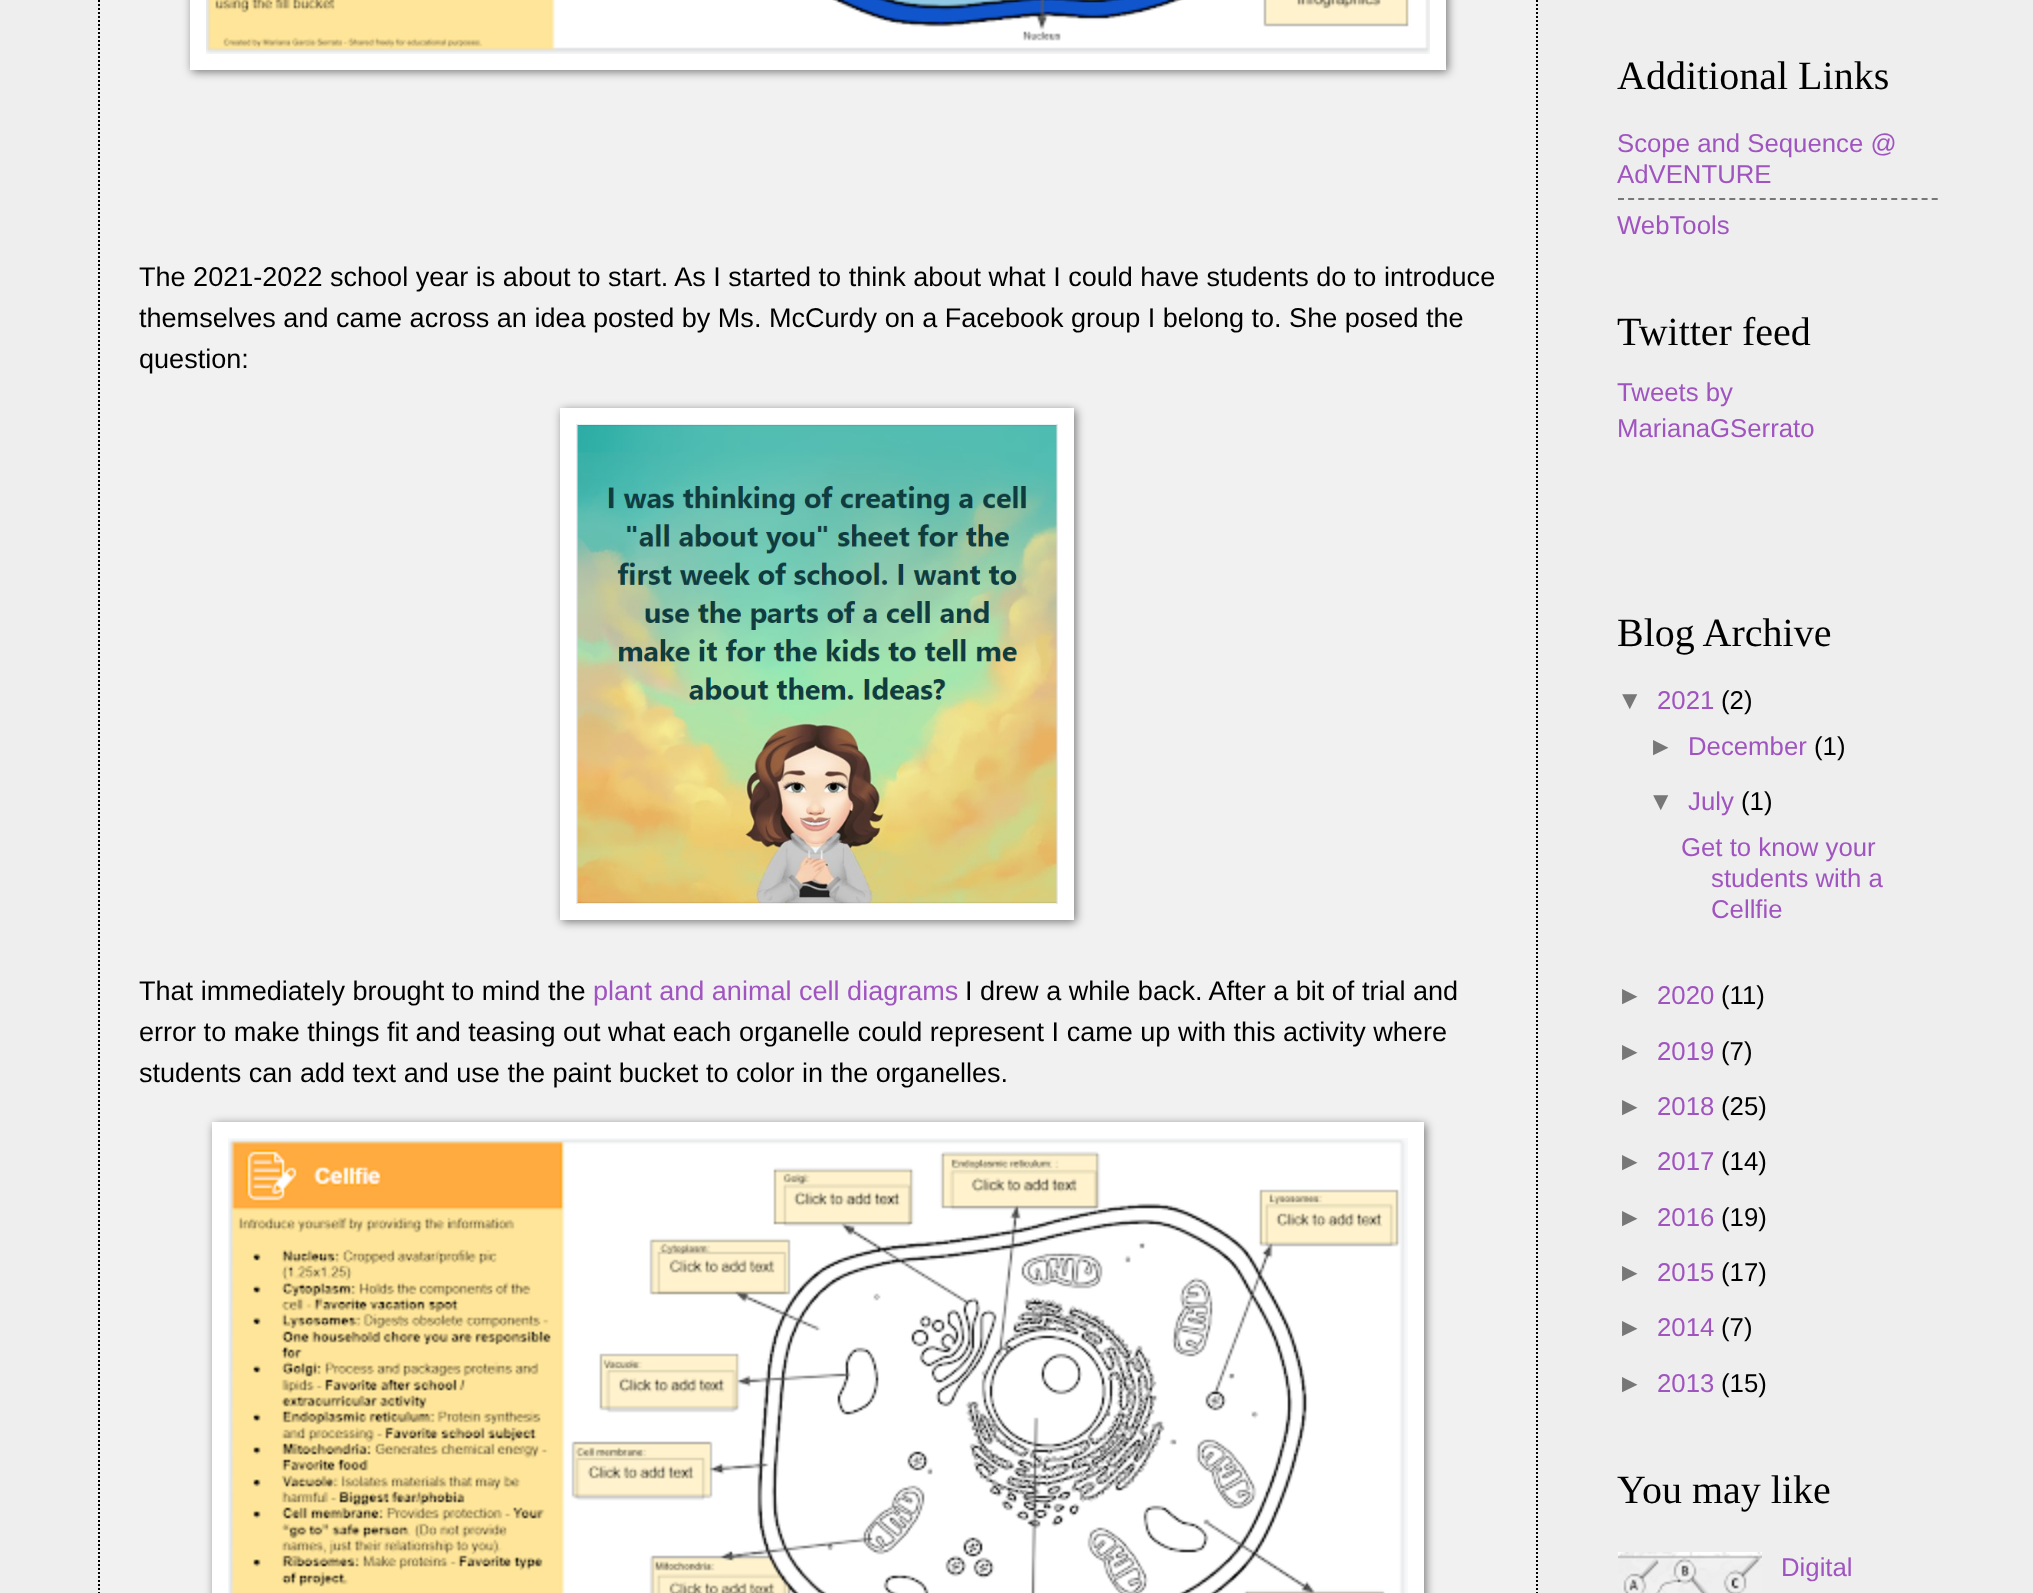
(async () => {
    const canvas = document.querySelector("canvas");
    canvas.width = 2033;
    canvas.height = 1593;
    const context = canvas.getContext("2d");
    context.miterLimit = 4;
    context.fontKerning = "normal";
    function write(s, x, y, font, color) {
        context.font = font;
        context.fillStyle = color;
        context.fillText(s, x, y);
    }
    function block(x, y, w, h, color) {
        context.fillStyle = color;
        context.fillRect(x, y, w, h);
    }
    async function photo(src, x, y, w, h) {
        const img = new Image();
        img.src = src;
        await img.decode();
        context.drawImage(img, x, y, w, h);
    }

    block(0, 0, 2033, 1593, "rgb(238, 238, 238)");
    block(98, 0, 1440, 1593, "rgb(241, 241, 241)");
    context.beginPath();
    context.moveTo(1537, -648);
    context.lineTo(1537, 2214);
    context.strokeStyle = "rgb(0, 0, 0)";
    context.lineWidth = 2;
    context.setLineDash([2, 2]);
    context.stroke();
    context.beginPath();
    context.moveTo(99, -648);
    context.lineTo(99, 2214);
    context.stroke();
    context.fillStyle = "rgba(0, 0, 0, 0.5)";
    context.filter = "blur(5px)";
    context.beginPath();
    context.rect(192, -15, 1256, 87);
    context.fill();
    context.filter = "none";
    block(190, 0, 1256, 70, "rgb(255, 255, 255)");
    await photo("media/1.png", 206, 0, 1224, 54);
    write("The 2021-2022 school year is about to start. As I started to think about what I could have students do to introduce", 139, 286, "27.05px Liberation Sans", "rgb(0, 0, 0)");
    write("themselves and came across an idea posted by Ms. McCurdy on a Facebook group I belong to. She posed the", 139, 327, "27.05px Liberation Sans", "rgb(0, 0, 0)");
    write("question:", 139, 368, "27.05px Liberation Sans", "rgb(0, 0, 0)");
    context.fillStyle = "rgba(0, 0, 0, 0.5)";
    context.filter = "blur(5px)";
    context.beginPath();
    context.rect(562, 410, 514, 512);
    context.fill();
    context.filter = "none";
    block(560, 408, 514, 512, "rgb(255, 255, 255)");
    await photo("media/2.png", 576, 424, 482, 480);
    write("That immediately brought to mind the", 139, 1000, "27.05px Liberation Sans", "rgb(0, 0, 0)");
    write("plant and animal cell diagrams", 593, 1000, "27.05px Liberation Sans", "rgb(160, 84, 192)");
    write("I drew a while back. After a bit of trial and", 965, 1000, "27.05px Liberation Sans", "rgb(0, 0, 0)");
    write("error to make things fit and teasing out what each organelle could represent I came up with this activity where", 139, 1041, "27.05px Liberation Sans", "rgb(0, 0, 0)");
    write("students can add text and use the paint bucket to color in the organelles.", 139, 1082, "27.05px Liberation Sans", "rgb(0, 0, 0)");
    context.fillStyle = "rgba(0, 0, 0, 0.5)";
    context.filter = "blur(5px)";
    context.beginPath();
    context.rect(214, 1124, 1212, 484);
    context.fill();
    context.filter = "none";
    block(212, 1122, 1212, 471, "rgb(255, 255, 255)");
    await photo("media/3.png", 228, 1138, 1180, 455);
    write("Additional Links", 1617, 89, "40px Liberation Serif", "rgb(0, 0, 0)");
    write("Scope and Sequence @", 1617, 152, "25.75px Liberation Sans", "rgb(160, 84, 192)");
    write("AdVENTURE", 1617, 183, "25.75px Liberation Sans", "rgb(160, 84, 192)");
    context.beginPath();
    context.moveTo(1618, 199);
    context.lineTo(1938, 199);
    context.strokeStyle = "rgb(119, 119, 119)";
    context.setLineDash([6, 4.12]);
    context.stroke();
    write("WebTools", 1617, 234, "25.75px Liberation Sans", "rgb(160, 84, 192)");
    write("Twitter feed", 1617, 345, "40px Liberation Serif", "rgb(0, 0, 0)");
    write("Tweets by", 1617, 401, "25.75px Liberation Sans", "rgb(160, 84, 192)");
    write("MarianaGSerrato", 1617, 437, "25.75px Liberation Sans", "rgb(160, 84, 192)");
    write("Blog Archive", 1617, 646, "40px Liberation Serif", "rgb(0, 0, 0)");
    write("▼", 1617, 709, "25.75px Liberation Sans", "rgb(119, 119, 119)");
    write("2021", 1657, 709, "25.75px Liberation Sans", "rgb(160, 84, 192)");
    write("(2)", 1721, 709, "25.75px Liberation Sans", "rgb(0, 0, 0)");
    write("►", 1648, 755, "25.75px Liberation Sans", "rgb(119, 119, 119)");
    write("December", 1688, 755, "25.75px Liberation Sans", "rgb(160, 84, 192)");
    write("(1)", 1814, 755, "25.75px Liberation Sans", "rgb(0, 0, 0)");
    write("▼", 1648, 810, "25.75px Liberation Sans", "rgb(119, 119, 119)");
    write("July", 1688, 810, "25.75px Liberation Sans", "rgb(160, 84, 192)");
    write("(1)", 1741, 810, "25.75px Liberation Sans", "rgb(0, 0, 0)");
    write("Get to know your", 1681, 856, "25.75px Liberation Sans", "rgb(160, 84, 192)");
    write("students with a", 1711, 887, "25.75px Liberation Sans", "rgb(160, 84, 192)");
    write("Cellfie", 1711, 918, "25.75px Liberation Sans", "rgb(160, 84, 192)");
    write("►", 1617, 1004, "25.75px Liberation Sans", "rgb(119, 119, 119)");
    write("2020", 1657, 1004, "25.75px Liberation Sans", "rgb(160, 84, 192)");
    write("(11)", 1721, 1004, "25.75px Liberation Sans", "rgb(0, 0, 0)");
    write("►", 1617, 1060, "25.75px Liberation Sans", "rgb(119, 119, 119)");
    write("2019", 1657, 1060, "25.75px Liberation Sans", "rgb(160, 84, 192)");
    write("(7)", 1721, 1060, "25.75px Liberation Sans", "rgb(0, 0, 0)");
    write("►", 1617, 1115, "25.75px Liberation Sans", "rgb(119, 119, 119)");
    write("2018", 1657, 1115, "25.75px Liberation Sans", "rgb(160, 84, 192)");
    write("(25)", 1721, 1115, "25.75px Liberation Sans", "rgb(0, 0, 0)");
    write("►", 1617, 1170, "25.75px Liberation Sans", "rgb(119, 119, 119)");
    write("2017", 1657, 1170, "25.75px Liberation Sans", "rgb(160, 84, 192)");
    write("(14)", 1721, 1170, "25.75px Liberation Sans", "rgb(0, 0, 0)");
    write("►", 1617, 1226, "25.75px Liberation Sans", "rgb(119, 119, 119)");
    write("2016", 1657, 1226, "25.75px Liberation Sans", "rgb(160, 84, 192)");
    write("(19)", 1721, 1226, "25.75px Liberation Sans", "rgb(0, 0, 0)");
    write("►", 1617, 1281, "25.75px Liberation Sans", "rgb(119, 119, 119)");
    write("2015", 1657, 1281, "25.75px Liberation Sans", "rgb(160, 84, 192)");
    write("(17)", 1721, 1281, "25.75px Liberation Sans", "rgb(0, 0, 0)");
    write("►", 1617, 1336, "25.75px Liberation Sans", "rgb(119, 119, 119)");
    write("2014", 1657, 1336, "25.75px Liberation Sans", "rgb(160, 84, 192)");
    write("(7)", 1721, 1336, "25.75px Liberation Sans", "rgb(0, 0, 0)");
    write("►", 1617, 1392, "25.75px Liberation Sans", "rgb(119, 119, 119)");
    write("2013", 1657, 1392, "25.75px Liberation Sans", "rgb(160, 84, 192)");
    write("(15)", 1721, 1392, "25.75px Liberation Sans", "rgb(0, 0, 0)");
    write("You may like", 1617, 1503, "40px Liberation Serif", "rgb(0, 0, 0)");
    await photo("media/4.png", 1618, 1552, 144, 41);
    write("Digital", 1781, 1576, "25.75px Liberation Sans", "rgb(160, 84, 192)");
})();
